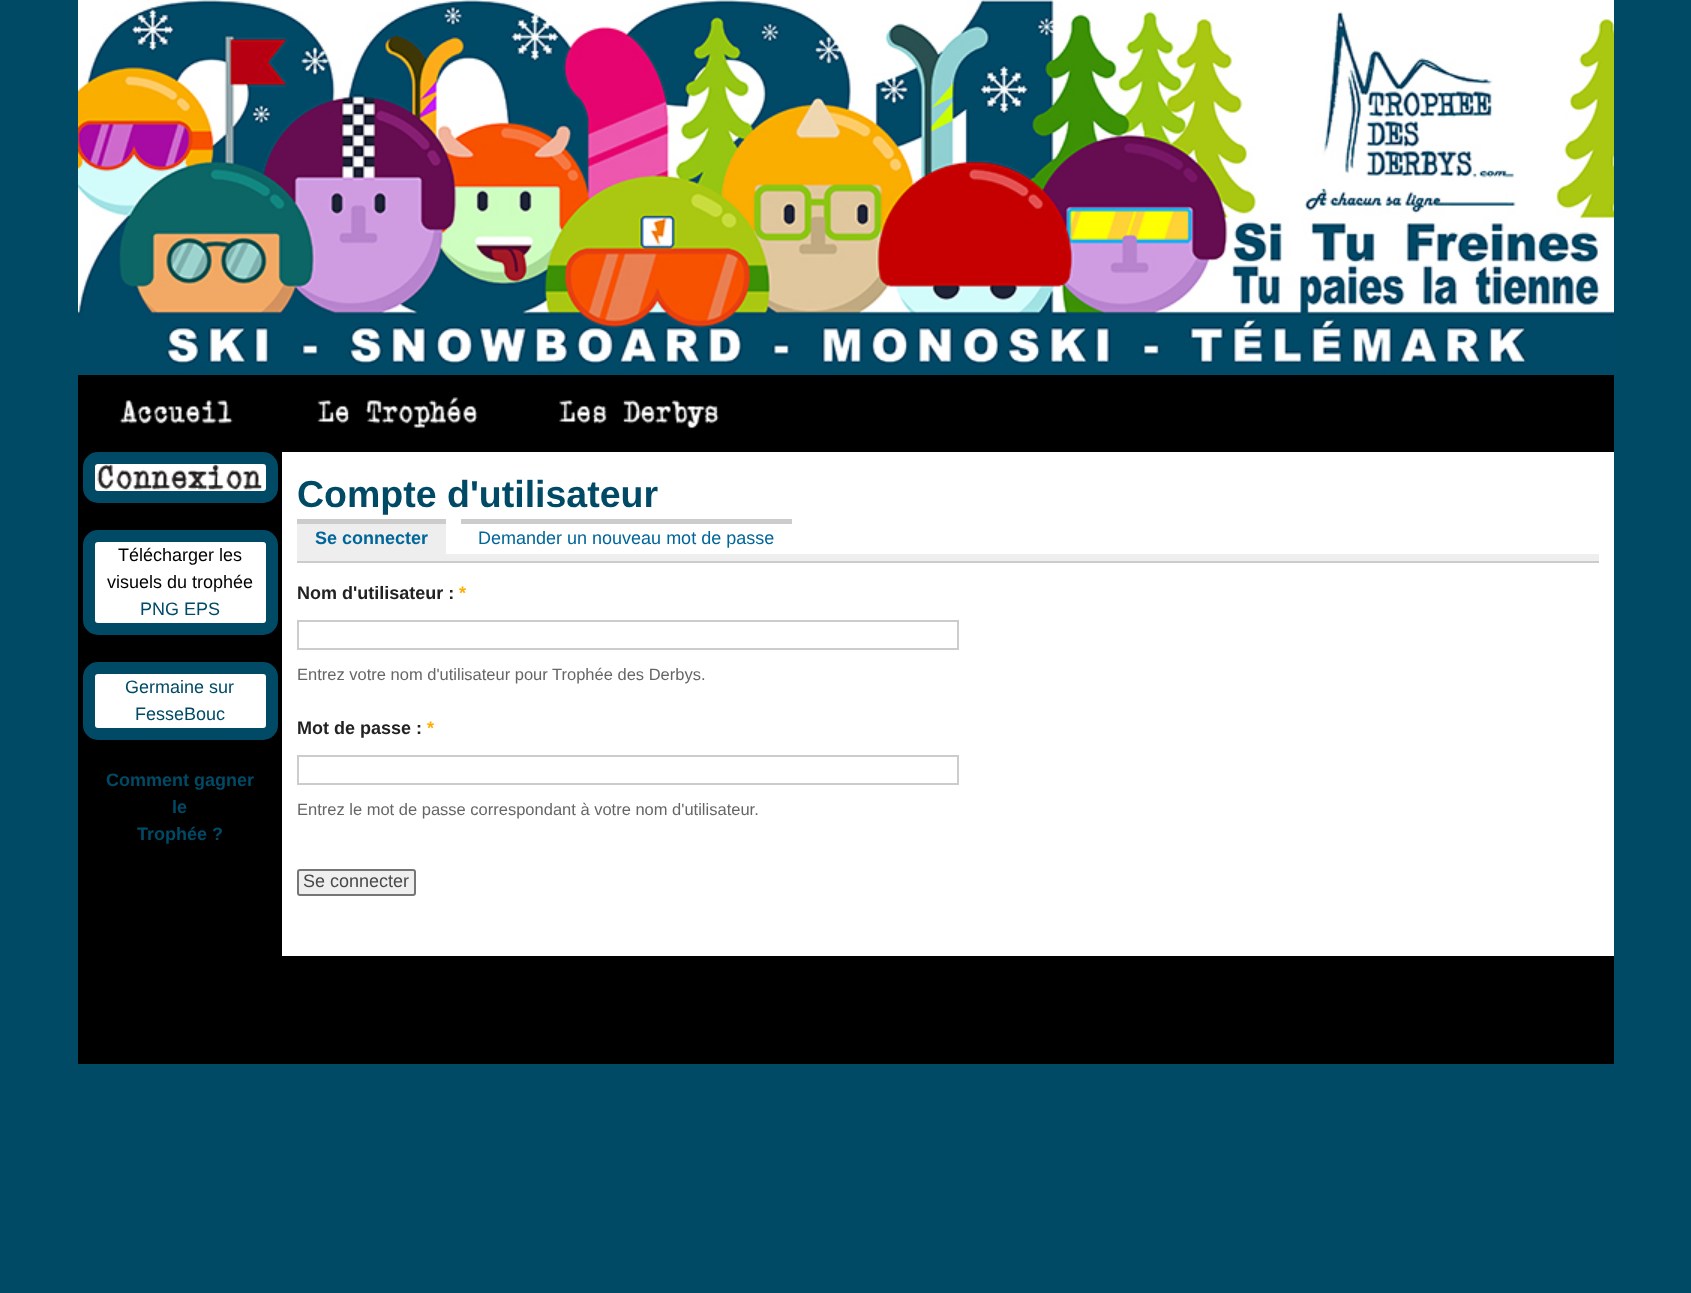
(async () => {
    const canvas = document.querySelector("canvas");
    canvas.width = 1691;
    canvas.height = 1293;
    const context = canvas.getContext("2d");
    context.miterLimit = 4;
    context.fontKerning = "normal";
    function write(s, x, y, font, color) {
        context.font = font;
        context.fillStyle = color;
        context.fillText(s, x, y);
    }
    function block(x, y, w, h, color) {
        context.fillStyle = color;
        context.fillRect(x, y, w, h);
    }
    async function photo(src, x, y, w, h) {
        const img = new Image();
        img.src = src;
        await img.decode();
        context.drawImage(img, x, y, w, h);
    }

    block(0, 0, 1691, 1293, "rgb(0, 74, 102)");
    block(78, 375, 1536, 689, "rgb(0, 0, 0)");
    await photo("media/1.png", 78, 0, 1536, 375);
    await photo("media/2.png", 119, 400, 114, 24);
    await photo("media/3.png", 317, 397, 161, 31);
    await photo("media/4.png", 559, 400, 160, 29);
    context.fillStyle = "rgb(255, 255, 255)";
    context.beginPath();
    context.roundRect(89, 458, 183, 39, 9);
    context.fill();
    context.strokeStyle = "rgb(0, 74, 102)";
    context.lineWidth = 12;
    context.stroke();
    await photo("media/5.png", 97, 464, 165, 26);
    context.beginPath();
    context.roundRect(89, 536, 183, 93, 9);
    context.fill();
    context.stroke();
    write("Télécharger les", 118, 561, "18px Liberation Sans", "rgb(0, 0, 0)");
    write("visuels du trophée", 107, 588, "18px Liberation Sans", "rgb(0, 0, 0)");
    write("PNG EPS", 140, 615, "18px Liberation Sans", "rgb(0, 74, 102)");
    context.fillStyle = "rgb(255, 255, 255)";
    context.beginPath();
    context.roundRect(89, 668, 183, 66, 9);
    context.fill();
    context.stroke();
    write("Germaine sur", 125, 693, "18px Liberation Sans", "rgb(0, 74, 102)");
    write("FesseBouc", 135, 720, "18px Liberation Sans", "rgb(0, 74, 102)");
    write("Comment gagner", 106, 786, "bold 18px Liberation Sans", "rgb(0, 74, 102)");
    write("le", 172, 813, "bold 18px Liberation Sans", "rgb(0, 74, 102)");
    write("Trophée ?", 137, 840, "bold 18px Liberation Sans", "rgb(0, 74, 102)");
    block(282, 452, 1332, 504, "rgb(255, 255, 255)");
    write("Compte d'utilisateur", 297, 507, "bold 37.5px Liberation Sans", "rgb(0, 74, 102)");
    block(297, 561, 1302, 2, "rgb(204, 204, 204)");
    block(297, 554, 1302, 7, "rgb(238, 238, 238)");
    block(297, 524, 149, 30, "rgb(238, 238, 238)");
    write("Se connecter", 315, 544, "bold 18px Liberation Sans", "rgb(0, 102, 153)");
    block(297, 519, 149, 5, "rgb(204, 204, 204)");
    write("Demander un nouveau mot de passe", 478, 544, "18px Liberation Sans", "rgb(0, 102, 153)");
    block(461, 519, 331, 5, "rgb(204, 204, 204)");
    write("Nom d'utilisateur :", 297, 599, "bold 18px Liberation Sans", "rgb(34, 34, 34)");
    write("*", 459, 599, "bold 18px Liberation Sans", "rgb(255, 174, 0)");
    context.strokeStyle = "rgb(204, 204, 204)";
    context.lineWidth = 2;
    context.strokeRect(298, 621, 660, 28);
    write("Entrez votre nom d'utilisateur pour Trophée des Derbys.", 297, 680, "16.5px Liberation Sans", "rgb(102, 102, 102)");
    write("Mot de passe :", 297, 734, "bold 18px Liberation Sans", "rgb(34, 34, 34)");
    write("*", 427, 734, "bold 18px Liberation Sans", "rgb(255, 174, 0)");
    context.strokeRect(298, 756, 660, 28);
    write("Entrez le mot de passe correspondant à votre nom d'utilisateur.", 297, 815, "16.5px Liberation Sans", "rgb(102, 102, 102)");
    context.fillStyle = "rgb(239, 239, 239)";
    context.beginPath();
    context.roundRect(298, 870, 117, 25, 2);
    context.fill();
    context.strokeStyle = "rgb(118, 118, 118)";
    context.stroke();
    write("Se connecter", 303, 887, "18px Liberation Sans", "rgb(73, 73, 73)");
})();
